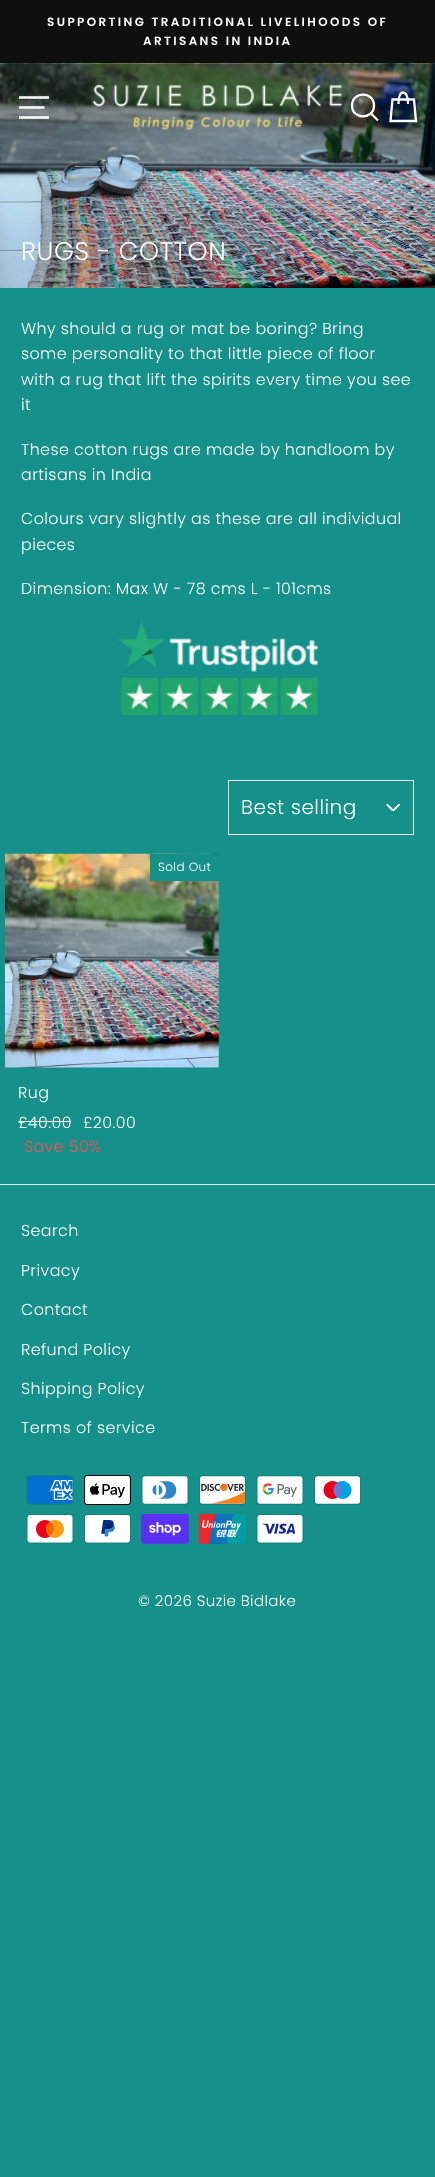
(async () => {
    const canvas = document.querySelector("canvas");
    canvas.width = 435;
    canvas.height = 2177;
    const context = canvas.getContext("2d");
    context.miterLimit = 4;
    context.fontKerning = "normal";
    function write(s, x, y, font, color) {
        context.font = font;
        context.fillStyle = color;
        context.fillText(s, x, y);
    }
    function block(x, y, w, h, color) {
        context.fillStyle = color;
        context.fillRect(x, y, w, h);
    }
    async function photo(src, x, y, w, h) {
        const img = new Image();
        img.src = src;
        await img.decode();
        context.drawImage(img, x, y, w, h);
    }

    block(0, 0, 435, 2177, "rgb(21, 144, 138)");
    block(0, 0, 435, 63, "rgb(15, 15, 15)");
    context.letterSpacing = "2.4px";
    write("SUPPORTING TRADITIONAL LIVELIHOODS OF", 47, 26, "600 11.95px Poppins", "rgb(255, 255, 255)");
    write("ARTISANS IN INDIA", 143, 45, "600 11.95px Poppins", "rgb(255, 255, 255)");
    await photo("media/2.png", 0, 63, 435, 225);
    context.beginPath();
    context.moveTo(19, 97.5);
    context.lineTo(49, 97.5);
    context.moveTo(19, 107.5);
    context.lineTo(44.5, 107.5);
    context.moveTo(19, 117.5);
    context.lineTo(49, 117.5);
    context.strokeStyle = "rgb(255, 255, 255)";
    context.lineWidth = 2.3;
    context.stroke();
    await photo("media/1.png", 92, 85, 251, 45);
    context.beginPath();
    context.moveTo(374, 105.5);
    context.bezierCurveTo(374, 120, 352, 120, 352, 105.5);
    context.bezierCurveTo(352, 91, 374, 91, 374, 105.5);
    context.closePath();
    context.moveTo(378, 120.5);
    context.lineTo(371, 113.5);
    context.moveTo(398.5, 104);
    context.bezierCurveTo(398.5, 94.5, 400.5, 92.5, 403, 92.5);
    context.bezierCurveTo(405.5, 92.5, 408, 94.5, 408, 104);
    context.stroke();
    context.beginPath();
    context.moveTo(392.5, 99.5);
    context.lineTo(414, 99.5);
    context.lineTo(416, 121);
    context.lineTo(390.5, 121);
    context.closePath();
    context.stroke();
    context.letterSpacing = "0.6px";
    write("RUGS - COTTON", 21, 260, "300 25.5px Poppins", "rgb(255, 255, 255)");
    context.letterSpacing = "0.4px";
    write("Why should a rug or mat be boring? Bring", 21, 334, "300 15.9px Poppins", "rgb(255, 255, 255)");
    write("some personality to that little piece of floor", 21, 359, "300 15.9px Poppins", "rgb(255, 255, 255)");
    write("with a rug that lift the spirits every time you see", 21, 385, "300 15.9px Poppins", "rgb(255, 255, 255)");
    write("it", 21, 410, "300 15.9px Poppins", "rgb(255, 255, 255)");
    write("These cotton rugs are made by handloom by", 21, 455, "300 15.9px Poppins", "rgb(255, 255, 255)");
    write("artisans in India", 21, 480, "300 15.9px Poppins", "rgb(255, 255, 255)");
    write("Colours vary slightly as these are all individual", 21, 524, "300 15.9px Poppins", "rgb(255, 255, 255)");
    write("pieces", 21, 550, "300 15.9px Poppins", "rgb(255, 255, 255)");
    write("Dimension: Max W - 78 cms L - 101cms", 21, 594, "300 15.9px Poppins", "rgb(255, 255, 255)");
    await photo("media/3.png", 118, 621, 200, 94);
    await photo("media/4.png", 386, 804, 14, 7);
    context.strokeStyle = "rgb(232, 232, 225)";
    context.lineWidth = 1;
    context.strokeRect(228.5, 780.5, 185, 54);
    context.letterSpacing = "0.5px";
    write("Best selling", 241, 814, "300 20px Poppins", "rgb(255, 255, 255)");
    await photo("media/5.png", 5, 853, 214, 215);
    block(150, 854, 69, 27, "rgb(21, 144, 138)");
    context.letterSpacing = "0.4px";
    write("Sold Out", 158, 871, "300 12px Poppins", "rgb(255, 255, 255)");
    write("Rug", 18, 1098, "300 15.9px Poppins", "rgb(255, 255, 255)");
    write("£40.00", 18, 1128, "300 15.9px Poppins", "rgb(255, 255, 255)");
    block(18, 1121, 53, 1, "rgb(255, 255, 255)");
    write("£20.00", 83, 1128, "300 15.9px Poppins", "rgb(255, 255, 255)");
    write("Save 50%", 24, 1152, "300 15.9px Poppins", "rgb(255, 78, 78)");
    block(0, 1184, 435, 1, "rgb(232, 232, 225)");
    write("Search", 21, 1236, "300 15.9px Poppins", "rgb(255, 255, 255)");
    write("Privacy", 21, 1276, "300 15.9px Poppins", "rgb(255, 255, 255)");
    write("Contact", 21, 1315, "300 15.9px Poppins", "rgb(255, 255, 255)");
    write("Refund Policy", 21, 1355, "300 15.9px Poppins", "rgb(255, 255, 255)");
    write("Shipping Policy", 21, 1394, "300 15.9px Poppins", "rgb(255, 255, 255)");
    write("Terms of service", 21, 1433, "300 15.9px Poppins", "rgb(255, 255, 255)");
    await photo("media/6.png", 26, 1475, 48, 30);
    await photo("media/7.png", 84, 1475, 47, 30);
    await photo("media/8.png", 141, 1475, 48, 30);
    await photo("media/9.png", 199, 1475, 47, 30);
    await photo("media/10.png", 256, 1475, 48, 30);
    await photo("media/11.png", 314, 1475, 47, 30);
    await photo("media/12.png", 26, 1514, 48, 30);
    await photo("media/13.png", 84, 1514, 47, 30);
    await photo("media/14.png", 141, 1514, 48, 30);
    await photo("media/15.png", 199, 1514, 47, 30);
    await photo("media/16.png", 256, 1514, 48, 30);
    write("© 2026 Suzie Bidlake", 138, 1606, "300 15px Poppins", "rgb(255, 255, 255)");
})();
